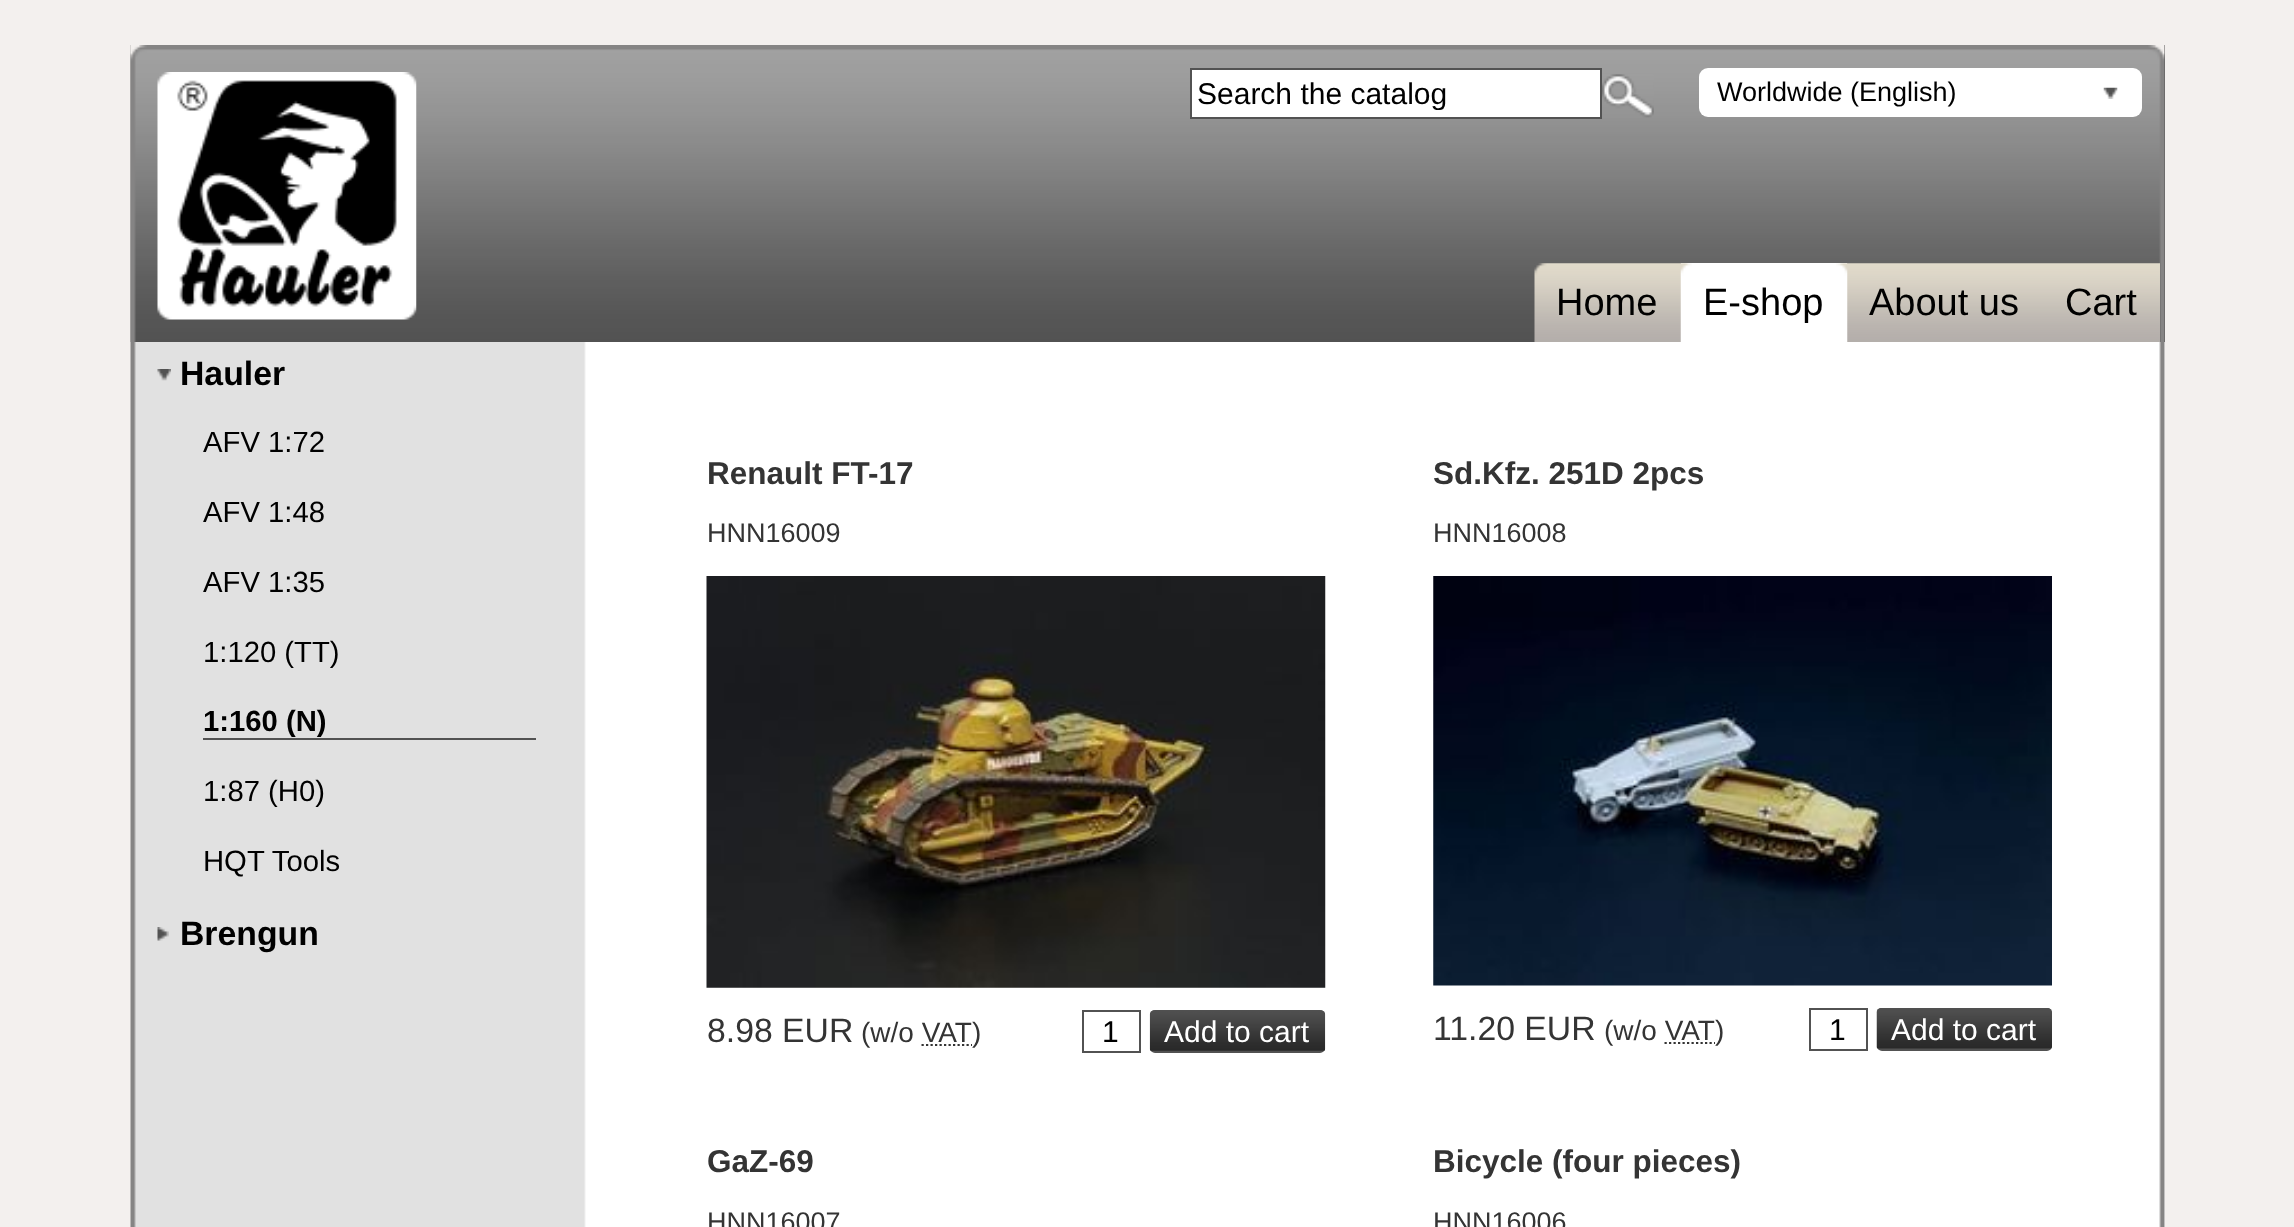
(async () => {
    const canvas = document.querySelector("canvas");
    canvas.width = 2294;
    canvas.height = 1227;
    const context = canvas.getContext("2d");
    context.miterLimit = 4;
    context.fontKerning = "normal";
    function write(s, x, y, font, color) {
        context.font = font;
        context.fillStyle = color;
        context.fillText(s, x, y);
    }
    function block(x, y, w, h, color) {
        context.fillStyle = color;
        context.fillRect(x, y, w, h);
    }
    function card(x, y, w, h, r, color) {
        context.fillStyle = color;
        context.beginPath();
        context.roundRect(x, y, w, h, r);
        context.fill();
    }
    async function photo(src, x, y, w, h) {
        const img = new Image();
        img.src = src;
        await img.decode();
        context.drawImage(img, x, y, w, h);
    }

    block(0, 0, 2294, 1227, "rgb(243, 240, 238)");
    block(2164, 342, 1, 885, "rgb(255, 255, 255)");
    await photo("media/1.png", 130, 45, 2035, 1182);
    block(2164, 45, 1, 297, "rgb(82, 82, 82)");
    await photo("media/2.png", 130, 45, 2035, 297);
    await photo("media/3.png", 157, 72, 260, 248);
    context.fillStyle = "rgb(255, 255, 255)";
    context.beginPath();
    context.rect(1191, 69, 410, 49);
    context.fill();
    context.strokeStyle = "rgb(82, 82, 82)";
    context.lineWidth = 2;
    context.stroke();
    context.save();
    context.beginPath();
    context.rect(1197, 77, 398, 33);
    context.clip();
    write("Search the catalog", 1197, 104, "30px Liberation Sans", "rgb(0, 0, 0)");
    context.restore();
    await photo("media/4.png", 1602, 74, 52, 44);
    card(1699, 68, 443, 49, 9, "rgb(255, 255, 255)");
    await photo("media/5.png", 2103, 87, 15, 12);
    write("Worldwide (English)", 1717, 101, "27px Liberation Sans", "rgb(0, 0, 0)");
    await photo("media/6.png", 1534, 263, 626, 79);
    write("Home", 1556, 315, "38px Liberation Sans", "rgb(0, 0, 0)");
    block(1681, 263, 166, 79, "rgb(255, 255, 255)");
    await photo("media/7.png", 1680, 263, 12, 79);
    await photo("media/8.png", 1836, 263, 12, 79);
    write("E-shop", 1703, 315, "38px Liberation Sans", "rgb(0, 0, 0)");
    write("About us", 1869, 315, "38px Liberation Sans", "rgb(0, 0, 0)");
    write("Cart", 2065, 315, "38px Liberation Sans", "rgb(0, 0, 0)");
    await photo("media/9.png", 157, 369, 14, 12);
    write("Hauler", 180, 385, "bold 33.75px Liberation Sans", "rgb(0, 0, 0)");
    write("AFV 1:72", 203, 452, "29.25px Liberation Sans", "rgb(0, 0, 0)");
    write("AFV 1:48", 203, 522, "29.25px Liberation Sans", "rgb(0, 0, 0)");
    write("AFV 1:35", 203, 592, "29.25px Liberation Sans", "rgb(0, 0, 0)");
    write("1:120 (TT)", 203, 662, "29.25px Liberation Sans", "rgb(0, 0, 0)");
    block(203, 738, 333, 2, "rgb(82, 82, 82)");
    write("1:160 (N)", 203, 731, "bold 29.25px Liberation Sans", "rgb(0, 0, 0)");
    write("1:87 (H0)", 203, 801, "29.25px Liberation Sans", "rgb(0, 0, 0)");
    write("HQT Tools", 203, 871, "29.25px Liberation Sans", "rgb(0, 0, 0)");
    await photo("media/10.png", 157, 927, 12, 14);
    write("Brengun", 180, 945, "bold 33.75px Liberation Sans", "rgb(0, 0, 0)");
    write("Renault FT-17", 707, 484, "bold 31.5px Liberation Sans", "rgb(52, 52, 52)");
    write("HNN16009", 707, 542, "27px Liberation Sans", "rgb(52, 52, 52)");
    await photo("media/11.png", 706, 576, 620, 412);
    write("8.98 EUR", 707, 1042, "33.75px Liberation Sans", "rgb(52, 52, 52)");
    write("(w/o VAT)", 861, 1042, "28px Liberation Sans", "rgb(52, 52, 52)");
    context.beginPath();
    context.moveTo(921.5, 1045);
    context.lineTo(972, 1045);
    context.strokeStyle = "rgb(52, 52, 52)";
    context.lineWidth = 2.2;
    context.setLineDash([2.25, 2.25]);
    context.stroke();
    context.strokeStyle = "rgb(82, 82, 82)";
    context.lineWidth = 2;
    context.setLineDash([]);
    context.strokeRect(1083, 1011, 57, 41);
    write("1", 1102, 1042, "30px Liberation Sans", "rgb(0, 0, 0)");
    card(1150, 1010, 175, 43, 5, "rgb(82, 82, 82)");
    await photo("media/12.png", 1149, 1010, 177, 41);
    write("Add to cart", 1164, 1042, "30px Liberation Sans", "rgb(255, 255, 255)");
    write("Sd.Kfz. 251D 2pcs", 1433, 484, "bold 31.5px Liberation Sans", "rgb(52, 52, 52)");
    write("HNN16008", 1433, 542, "27px Liberation Sans", "rgb(52, 52, 52)");
    await photo("media/13.png", 1433, 576, 619, 410);
    write("11.20 EUR", 1433, 1040, "33.75px Liberation Sans", "rgb(52, 52, 52)");
    write("(w/o VAT)", 1604, 1040, "28px Liberation Sans", "rgb(52, 52, 52)");
    context.beginPath();
    context.moveTo(1664.5, 1043);
    context.lineTo(1715, 1043);
    context.strokeStyle = "rgb(52, 52, 52)";
    context.lineWidth = 2.2;
    context.setLineDash([2.25, 2.25]);
    context.stroke();
    context.strokeStyle = "rgb(82, 82, 82)";
    context.lineWidth = 2;
    context.setLineDash([]);
    context.strokeRect(1810, 1009, 57, 41);
    write("1", 1829, 1040, "30px Liberation Sans", "rgb(0, 0, 0)");
    card(1877, 1008, 175, 43, 5, "rgb(82, 82, 82)");
    await photo("media/14.png", 1876, 1008, 176, 41);
    write("Add to cart", 1891, 1040, "30px Liberation Sans", "rgb(255, 255, 255)");
    write("GaZ-69", 707, 1172, "bold 31.5px Liberation Sans", "rgb(52, 52, 52)");
    write("HNN16007", 707, 1231, "27px Liberation Sans", "rgb(52, 52, 52)");
    write("Bicycle (four pieces)", 1433, 1172, "bold 31.5px Liberation Sans", "rgb(52, 52, 52)");
    write("HNN16006", 1433, 1231, "27px Liberation Sans", "rgb(52, 52, 52)");
})();
